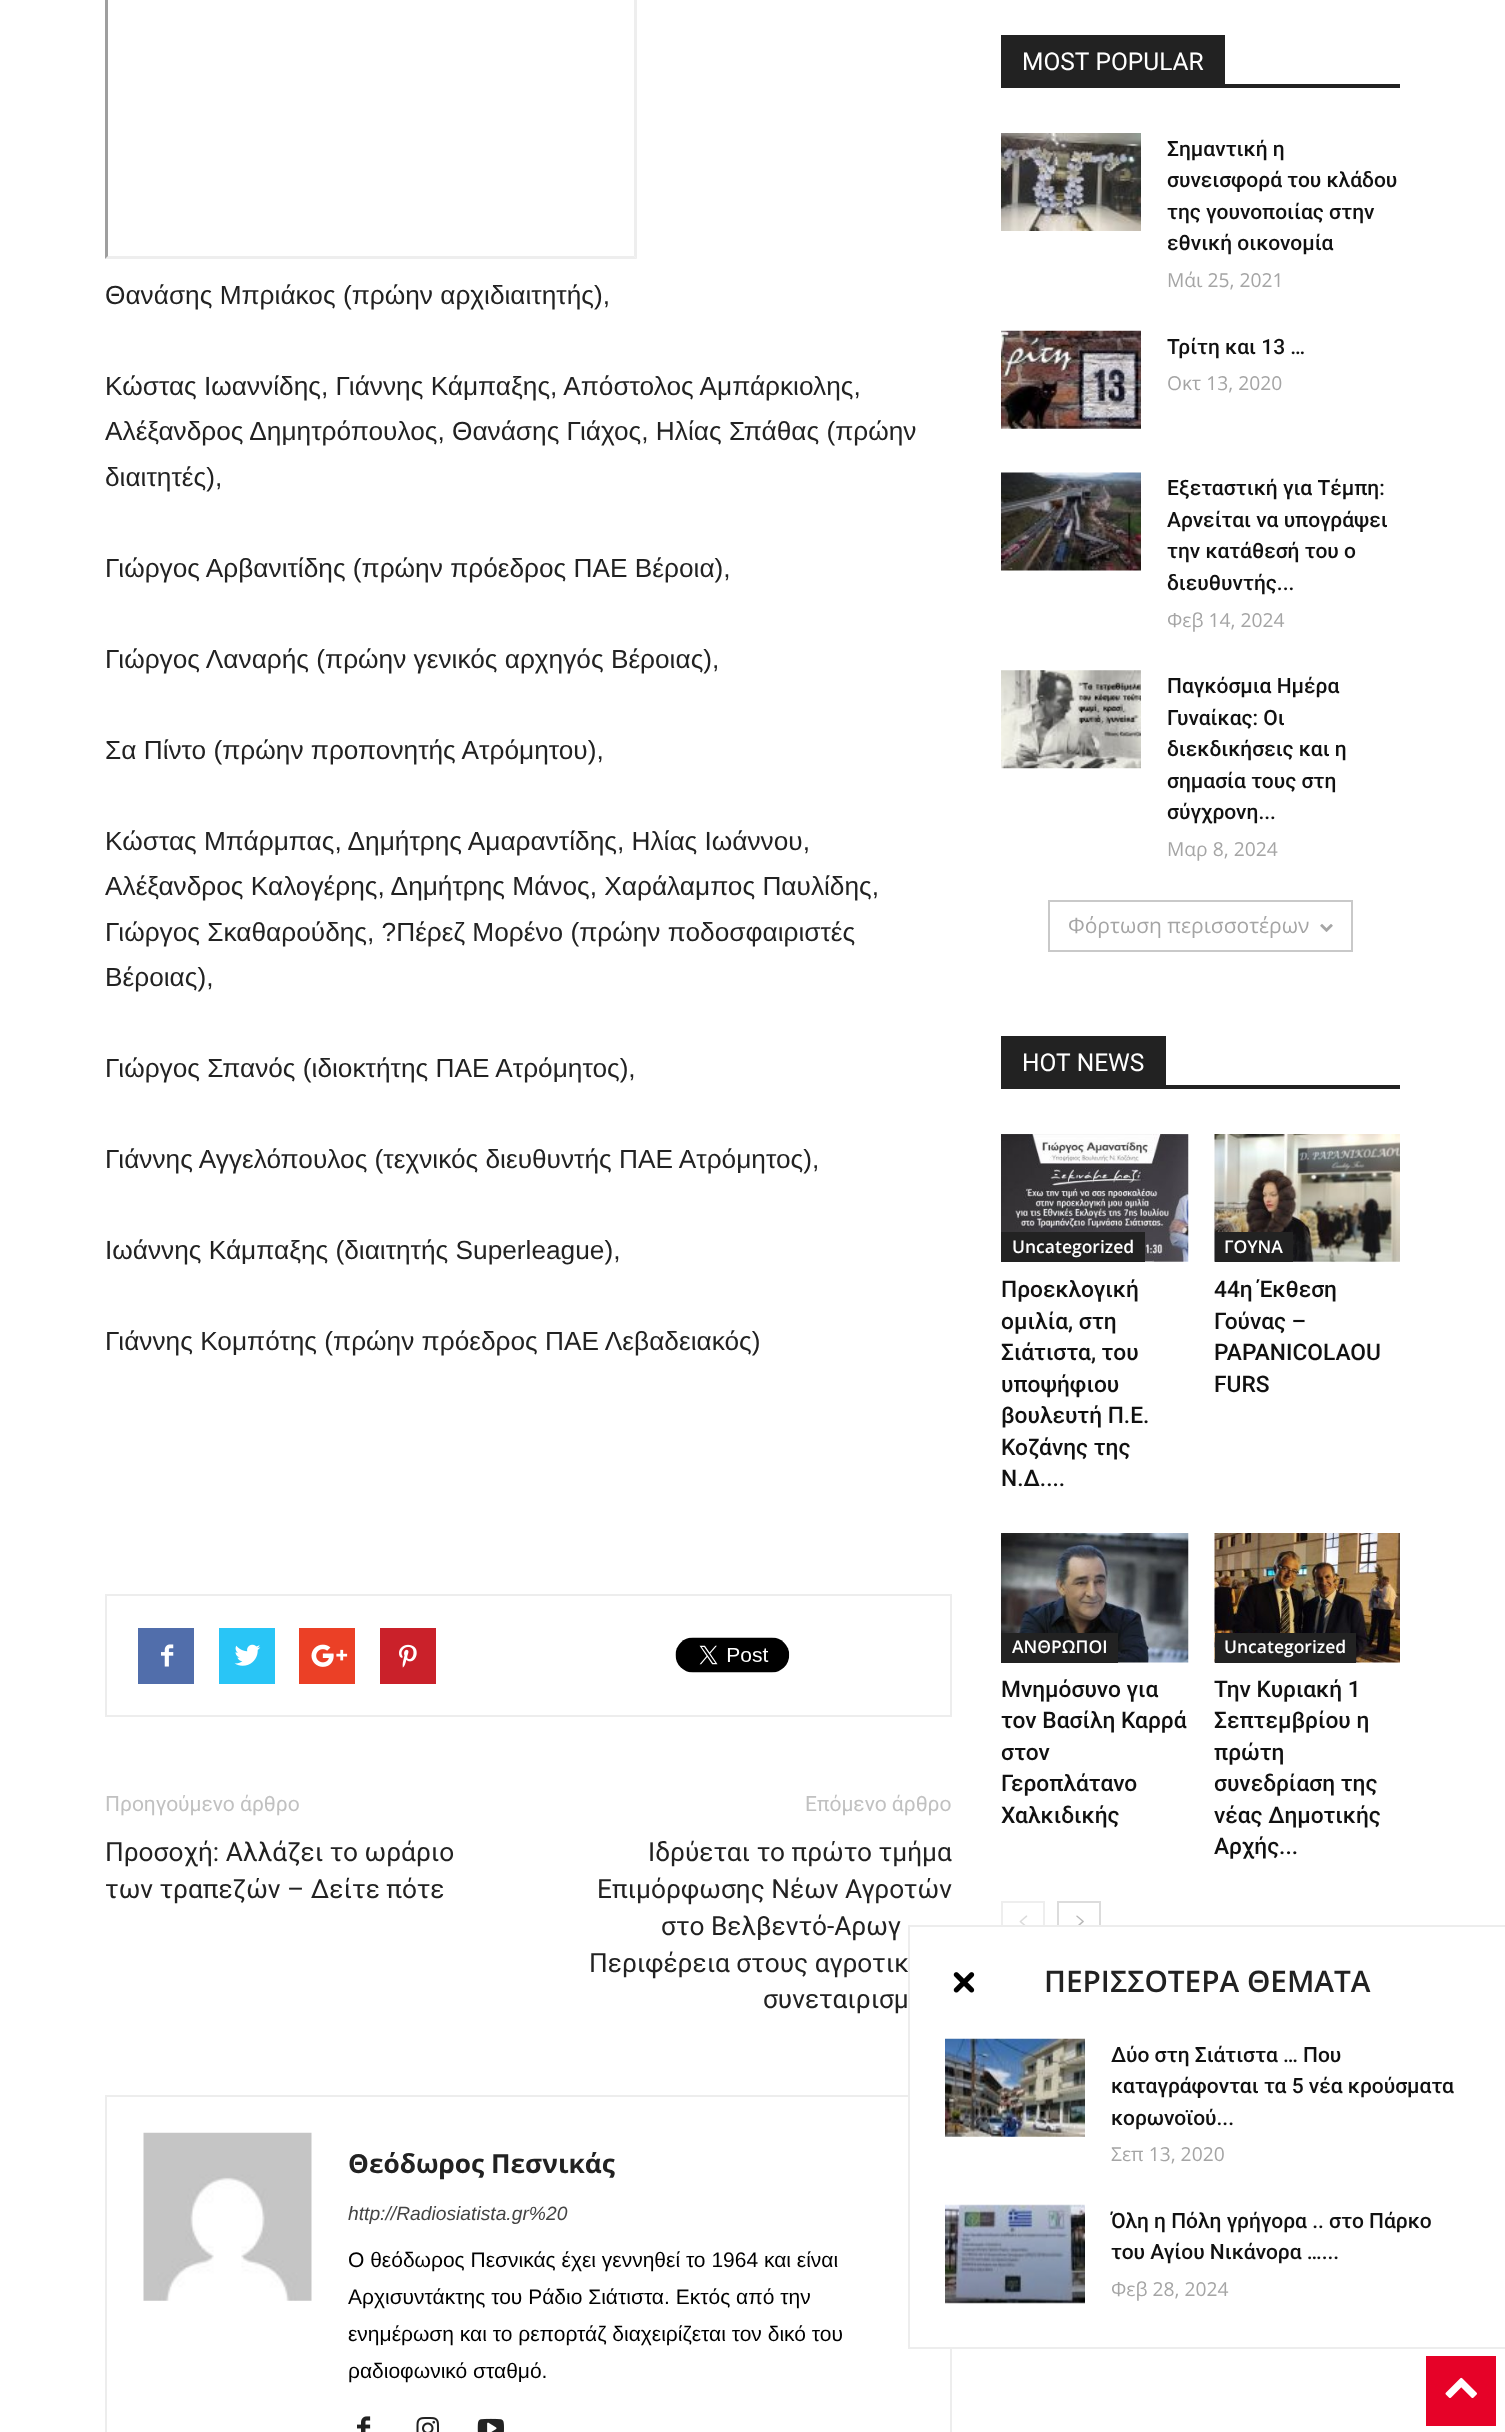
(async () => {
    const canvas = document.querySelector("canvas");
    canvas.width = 1505;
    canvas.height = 2432;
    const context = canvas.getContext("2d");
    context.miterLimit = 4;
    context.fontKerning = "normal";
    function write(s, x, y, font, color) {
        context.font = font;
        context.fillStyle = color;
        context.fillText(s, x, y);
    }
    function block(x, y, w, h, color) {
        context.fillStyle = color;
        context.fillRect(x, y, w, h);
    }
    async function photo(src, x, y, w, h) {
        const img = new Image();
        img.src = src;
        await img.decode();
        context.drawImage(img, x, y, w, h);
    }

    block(0, 0, 1505, 2432, "rgb(255, 255, 255)");
    context.fillStyle = "rgb(238, 238, 238)";
    context.beginPath();
    context.moveTo(637, -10);
    context.lineTo(637, 259);
    context.lineTo(634, 256);
    context.lineTo(634, -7);
    context.closePath();
    context.fill();
    context.beginPath();
    context.moveTo(637, 259);
    context.lineTo(105, 259);
    context.lineTo(108, 256);
    context.lineTo(634, 256);
    context.closePath();
    context.fill();
    context.fillStyle = "rgb(159, 159, 159)";
    context.beginPath();
    context.moveTo(105, 259);
    context.lineTo(105, -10);
    context.lineTo(108, -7);
    context.lineTo(108, 256);
    context.closePath();
    context.fill();
    write("Θανάσης Μπριάκος (πρώην αρχιδιαιτητής),", 105, 304, "26.25px Liberation Sans", "rgb(34, 34, 34)");
    write("Κώστας Ιωαννίδης, Γιάννης Κάμπαξης, Απόστολος Αμπάρκιολης,", 105, 395, "26.25px Liberation Sans", "rgb(34, 34, 34)");
    write("Αλέξανδρος Δημητρόπουλος, Θανάσης Γιάχος, Ηλίας Σπάθας (πρώην", 105, 440, "26.25px Liberation Sans", "rgb(34, 34, 34)");
    write("διαιτητές),", 105, 486, "26.25px Liberation Sans", "rgb(34, 34, 34)");
    write("Γιώργος Αρβανιτίδης (πρώην πρόεδρος ΠΑΕ Βέροια),", 105, 577, "26.25px Liberation Sans", "rgb(34, 34, 34)");
    write("Γιώργος Λαναρής (πρώην γενικός αρχηγός Βέροιας),", 105, 668, "26.25px Liberation Sans", "rgb(34, 34, 34)");
    write("Σα Πίντο (πρώην προπονητής Ατρόμητου),", 105, 759, "26.25px Liberation Sans", "rgb(34, 34, 34)");
    write("Κώστας Μπάρμπας, Δημήτρης Αμαραντίδης, Ηλίας Ιωάννου,", 105, 850, "26.25px Liberation Sans", "rgb(34, 34, 34)");
    write("Αλέξανδρος Καλογέρης, Δημήτρης Μάνος, Χαράλαμπος Παυλίδης,", 105, 895, "26.25px Liberation Sans", "rgb(34, 34, 34)");
    write("Γιώργος Σκαθαρούδης, ?Πέρεζ Μορένο (πρώην ποδοσφαιριστές", 105, 941, "26.25px Liberation Sans", "rgb(34, 34, 34)");
    write("Βέροιας),", 105, 986, "26.25px Liberation Sans", "rgb(34, 34, 34)");
    write("Γιώργος Σπανός (ιδιοκτήτης ΠΑΕ Ατρόμητος),", 105, 1077, "26.25px Liberation Sans", "rgb(34, 34, 34)");
    write("Γιάννης Αγγελόπουλος (τεχνικός διευθυντής ΠΑΕ Ατρόμητος),", 105, 1168, "26.25px Liberation Sans", "rgb(34, 34, 34)");
    write("Ιωάννης Κάμπαξης (διαιτητής Superleague),", 105, 1259, "26.25px Liberation Sans", "rgb(34, 34, 34)");
    write("Γιάννης Κομπότης (πρώην πρόεδρος ΠΑΕ Λεβαδειακός)", 105, 1350, "26.25px Liberation Sans", "rgb(34, 34, 34)");
    context.strokeStyle = "rgb(237, 237, 237)";
    context.lineWidth = 2;
    context.strokeRect(106, 1595, 845, 121);
    block(138, 1628, 56, 56, "rgb(81, 110, 171)");
    await photo("media/1.png", 161, 1644, 13, 23);
    block(219, 1628, 56, 56, "rgb(41, 197, 246)");
    await photo("media/2.png", 234, 1644, 27, 22);
    block(299, 1628, 56, 56, "rgb(235, 64, 38)");
    await photo("media/3.png", 311, 1644, 37, 23);
    block(380, 1628, 56, 56, "rgb(202, 33, 42)");
    await photo("media/4.png", 399, 1644, 18, 24);
    await photo("media/5.png", 675, 1637, 115, 36);
    write("Προηγούμενο άρθρο", 105, 1811, "21px Roboto", "rgb(193, 193, 193)");
    write("Προσοχή: Αλλάζει το ωράριο", 105, 1861, "26.25px Roboto", "rgb(34, 34, 34)");
    write("των τραπεζών – Δείτε πότε", 105, 1898, "26.25px Roboto", "rgb(34, 34, 34)");
    write("Επόμενο άρθρο", 805, 1811, "21px Roboto", "rgb(193, 193, 193)");
    write("Ιδρύεται το πρώτο τμήμα", 648, 1861, "26.25px Roboto", "rgb(34, 34, 34)");
    write("Επιμόρφωσης Νέων Αγροτών", 597, 1898, "26.25px Roboto", "rgb(34, 34, 34)");
    write("στο Βελβεντό-Αρωγ", 661, 1935, "26.25px Roboto", "rgb(34, 34, 34)");
    write("Περιφέρεια στους αγροτικ", 589, 1972, "26.25px Roboto", "rgb(34, 34, 34)");
    write("συνεταιρισμ", 763, 2008, "26.25px Roboto", "rgb(34, 34, 34)");
    context.strokeRect(106, 2096, 845, 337);
    await photo("media/6.png", 143, 2132, 169, 169);
    write("Θεόδωρος Πεσνικάς", 348, 2173, "bold 26.25px Open Sans", "rgb(34, 34, 34)");
    write("http://Radiosiatista.gr%20", 348, 2220, "italic 19.25px Liberation Sans", "rgb(68, 68, 68)");
    write("Ο θεόδωρος Πεσνικάς έχει γεννηθεί το 1964 και είναι", 348, 2267, "21px Liberation Sans", "rgb(0, 0, 0)");
    write("Αρχισυντάκτης του Ράδιο Σιάτιστα. Εκτός από την", 348, 2304, "21px Liberation Sans", "rgb(0, 0, 0)");
    write("ενημέρωση και το ρεπορτάζ διαχειρίζεται τον δικό του", 348, 2341, "21px Liberation Sans", "rgb(0, 0, 0)");
    write("ραδιοφωνικό σταθμό.", 348, 2378, "21px Liberation Sans", "rgb(0, 0, 0)");
    await photo("media/7.png", 357, 2416, 14, 16);
    await photo("media/8.png", 416, 2417, 23, 15);
    await photo("media/9.png", 477, 2418, 27, 14);
    block(1001, 84, 399, 4, "rgb(34, 34, 34)");
    block(1001, 35, 224, 49, "rgb(34, 34, 34)");
    write("MOST POPULAR", 1022, 70, "24.5px Roboto", "rgb(255, 255, 255)");
    await photo("media/10.png", 1001, 133, 140, 98);
    write("Σημαντική η", 1167, 156, "500 21px Roboto", "rgb(17, 17, 17)");
    write("συνεισφορά του κλάδου", 1167, 187, "500 21px Roboto", "rgb(17, 17, 17)");
    write("της γουνοποιίας στην", 1167, 219, "500 21px Roboto", "rgb(17, 17, 17)");
    write("εθνική οικονομία", 1167, 250, "500 21px Roboto", "rgb(17, 17, 17)");
    write("Μάι 25, 2021", 1167, 287, "19.25px Open Sans", "rgb(165, 165, 165)");
    await photo("media/11.png", 1001, 330, 140, 99);
    write("Τρίτη και 13 …", 1167, 354, "500 21px Roboto", "rgb(17, 17, 17)");
    write("Οκτ 13, 2020", 1167, 390, "19.25px Open Sans", "rgb(165, 165, 165)");
    await photo("media/12.png", 1001, 472, 140, 99);
    write("Εξεταστική για Τέμπη:", 1167, 495, "500 21px Roboto", "rgb(17, 17, 17)");
    write("Αρνείται να υπογράψει", 1167, 527, "500 21px Roboto", "rgb(17, 17, 17)");
    write("την κατάθεσή του ο", 1167, 558, "500 21px Roboto", "rgb(17, 17, 17)");
    write("διευθυντής...", 1167, 590, "500 21px Roboto", "rgb(17, 17, 17)");
    write("Φεβ 14, 2024", 1167, 627, "19.25px Open Sans", "rgb(165, 165, 165)");
    await photo("media/13.png", 1001, 670, 140, 99);
    write("Παγκόσμια Ημέρα", 1167, 693, "500 21px Roboto", "rgb(17, 17, 17)");
    write("Γυναίκας: Οι", 1167, 725, "500 21px Roboto", "rgb(17, 17, 17)");
    write("διεκδικήσεις και η", 1167, 756, "500 21px Roboto", "rgb(17, 17, 17)");
    write("σημασία τους στη", 1167, 788, "500 21px Roboto", "rgb(17, 17, 17)");
    write("σύγχρονη...", 1167, 819, "500 21px Roboto", "rgb(17, 17, 17)");
    write("Μαρ 8, 2024", 1167, 856, "19.25px Open Sans", "rgb(165, 165, 165)");
    context.strokeStyle = "rgb(201, 201, 201)";
    context.strokeRect(1049, 901, 303, 50);
    write("Φόρτωση περισσοτέρων", 1068, 933, "21px Open Sans", "rgb(165, 165, 165)");
    await photo("media/14.png", 1320, 924, 13, 8);
    block(1001, 1085, 399, 4, "rgb(34, 34, 34)");
    block(1001, 1036, 165, 49, "rgb(34, 34, 34)");
    write("HOT NEWS", 1022, 1071, "24.5px Roboto", "rgb(255, 255, 255)");
    await photo("media/15.png", 1001, 1134, 188, 128);
    block(1001, 1232, 144, 30, "rgb(34, 34, 34)");
    write("Uncategorized", 1012, 1253, "600 17.5px Open Sans", "rgb(255, 255, 255)");
    write("Προεκλογική", 1001, 1297, "500 22.75px Roboto", "rgb(17, 17, 17)");
    write("ομιλία, στη", 1001, 1329, "500 22.75px Roboto", "rgb(17, 17, 17)");
    write("Σιάτιστα, του", 1001, 1360, "500 22.75px Roboto", "rgb(17, 17, 17)");
    write("υποψήφιου", 1001, 1392, "500 22.75px Roboto", "rgb(17, 17, 17)");
    write("βουλευτή Π.Ε.", 1001, 1423, "500 22.75px Roboto", "rgb(17, 17, 17)");
    write("Κοζάνης της", 1001, 1455, "500 22.75px Roboto", "rgb(17, 17, 17)");
    write("Ν.Δ....", 1001, 1486, "500 22.75px Roboto", "rgb(17, 17, 17)");
    await photo("media/16.png", 1214, 1134, 186, 128);
    block(1215, 1232, 78, 30, "rgb(34, 34, 34)");
    write("ΓΟΥΝΑ", 1224, 1253, "600 17.5px Open Sans", "rgb(255, 255, 255)");
    write("44η Έκθεση", 1214, 1297, "500 22.75px Roboto", "rgb(17, 17, 17)");
    write("Γούνας –", 1214, 1329, "500 22.75px Roboto", "rgb(17, 17, 17)");
    write("PAPANICOLAOU", 1214, 1360, "500 22.75px Roboto", "rgb(17, 17, 17)");
    write("FURS", 1214, 1392, "500 22.75px Roboto", "rgb(17, 17, 17)");
    await photo("media/17.png", 1001, 1533, 188, 130);
    block(1001, 1633, 117, 30, "rgb(34, 34, 34)");
    write("ΑΝΘΡΩΠΟΙ", 1012, 1653, "600 17.5px Open Sans", "rgb(255, 255, 255)");
    write("Μνημόσυνο για", 1001, 1697, "500 22.75px Roboto", "rgb(17, 17, 17)");
    write("τον Βασίλη Καρρά", 1001, 1728, "500 22.75px Roboto", "rgb(17, 17, 17)");
    write("στον", 1001, 1760, "500 22.75px Roboto", "rgb(17, 17, 17)");
    write("Γεροπλάτανο", 1001, 1791, "500 22.75px Roboto", "rgb(17, 17, 17)");
    write("Χαλκιδικής", 1001, 1823, "500 22.75px Roboto", "rgb(17, 17, 17)");
    await photo("media/18.png", 1214, 1533, 186, 130);
    block(1215, 1633, 141, 30, "rgb(34, 34, 34)");
    write("Uncategorized", 1224, 1653, "600 17.5px Open Sans", "rgb(255, 255, 255)");
    write("Την Κυριακή 1", 1214, 1697, "500 22.75px Roboto", "rgb(17, 17, 17)");
    write("Σεπτεμβρίου η", 1214, 1728, "500 22.75px Roboto", "rgb(17, 17, 17)");
    write("πρώτη", 1214, 1760, "500 22.75px Roboto", "rgb(17, 17, 17)");
    write("συνεδρίαση της", 1214, 1791, "500 22.75px Roboto", "rgb(17, 17, 17)");
    write("νέας Δημοτικής", 1214, 1823, "500 22.75px Roboto", "rgb(17, 17, 17)");
    write("Αρχής...", 1214, 1854, "500 22.75px Roboto", "rgb(17, 17, 17)");
    context.strokeStyle = "rgb(238, 238, 238)";
    context.strokeRect(1002, 1902, 42, 41);
    await photo("media/19.png", 1019, 1915, 9, 10);
    context.strokeStyle = "rgb(220, 220, 220)";
    context.strokeRect(1058, 1902, 42, 41);
    await photo("media/20.png", 1076, 1915, 8, 10);
    block(910, 1927, 191, 420, "rgb(255, 255, 255)");
    block(908, 1925, 597, 2, "rgb(237, 237, 237)");
    block(908, 2347, 597, 2, "rgb(237, 237, 237)");
    block(908, 1925, 2, 424, "rgb(237, 237, 237)");
    await photo("media/21.png", 953, 1972, 22, 21);
    write("ΠΕΡΙΣΣΟΤΕΡΑ ΘΕΜΑΤΑ", 1044, 1992, "600 29.75px Open Sans", "rgb(34, 34, 34)");
    await photo("media/22.png", 945, 2038, 140, 99);
    write("Δύο στη Σιάτιστα … Που", 1111, 2062, "500 21px Roboto", "rgb(17, 17, 17)");
    write("καταγράφονται τα 5 νέα κρούσματα", 1111, 2093, "500 21px Roboto", "rgb(17, 17, 17)");
    write("κορωνοϊού...", 1111, 2125, "500 21px Roboto", "rgb(17, 17, 17)");
    write("Σεπ 13, 2020", 1111, 2161, "19.25px Open Sans", "rgb(165, 165, 165)");
    await photo("media/23.png", 945, 2204, 140, 100);
    write("Όλη η Πόλη γρήγορα .. στο Πάρκο", 1111, 2228, "500 21px Roboto", "rgb(17, 17, 17)");
    write("του Αγίου Νικάνορα …...", 1111, 2259, "500 21px Roboto", "rgb(17, 17, 17)");
    write("Φεβ 28, 2024", 1111, 2296, "19.25px Open Sans", "rgb(165, 165, 165)");
    block(1426, 2356, 70, 70, "rgb(230, 2, 40)");
    await photo("media/24.png", 1445, 2377, 32, 21);
})();
